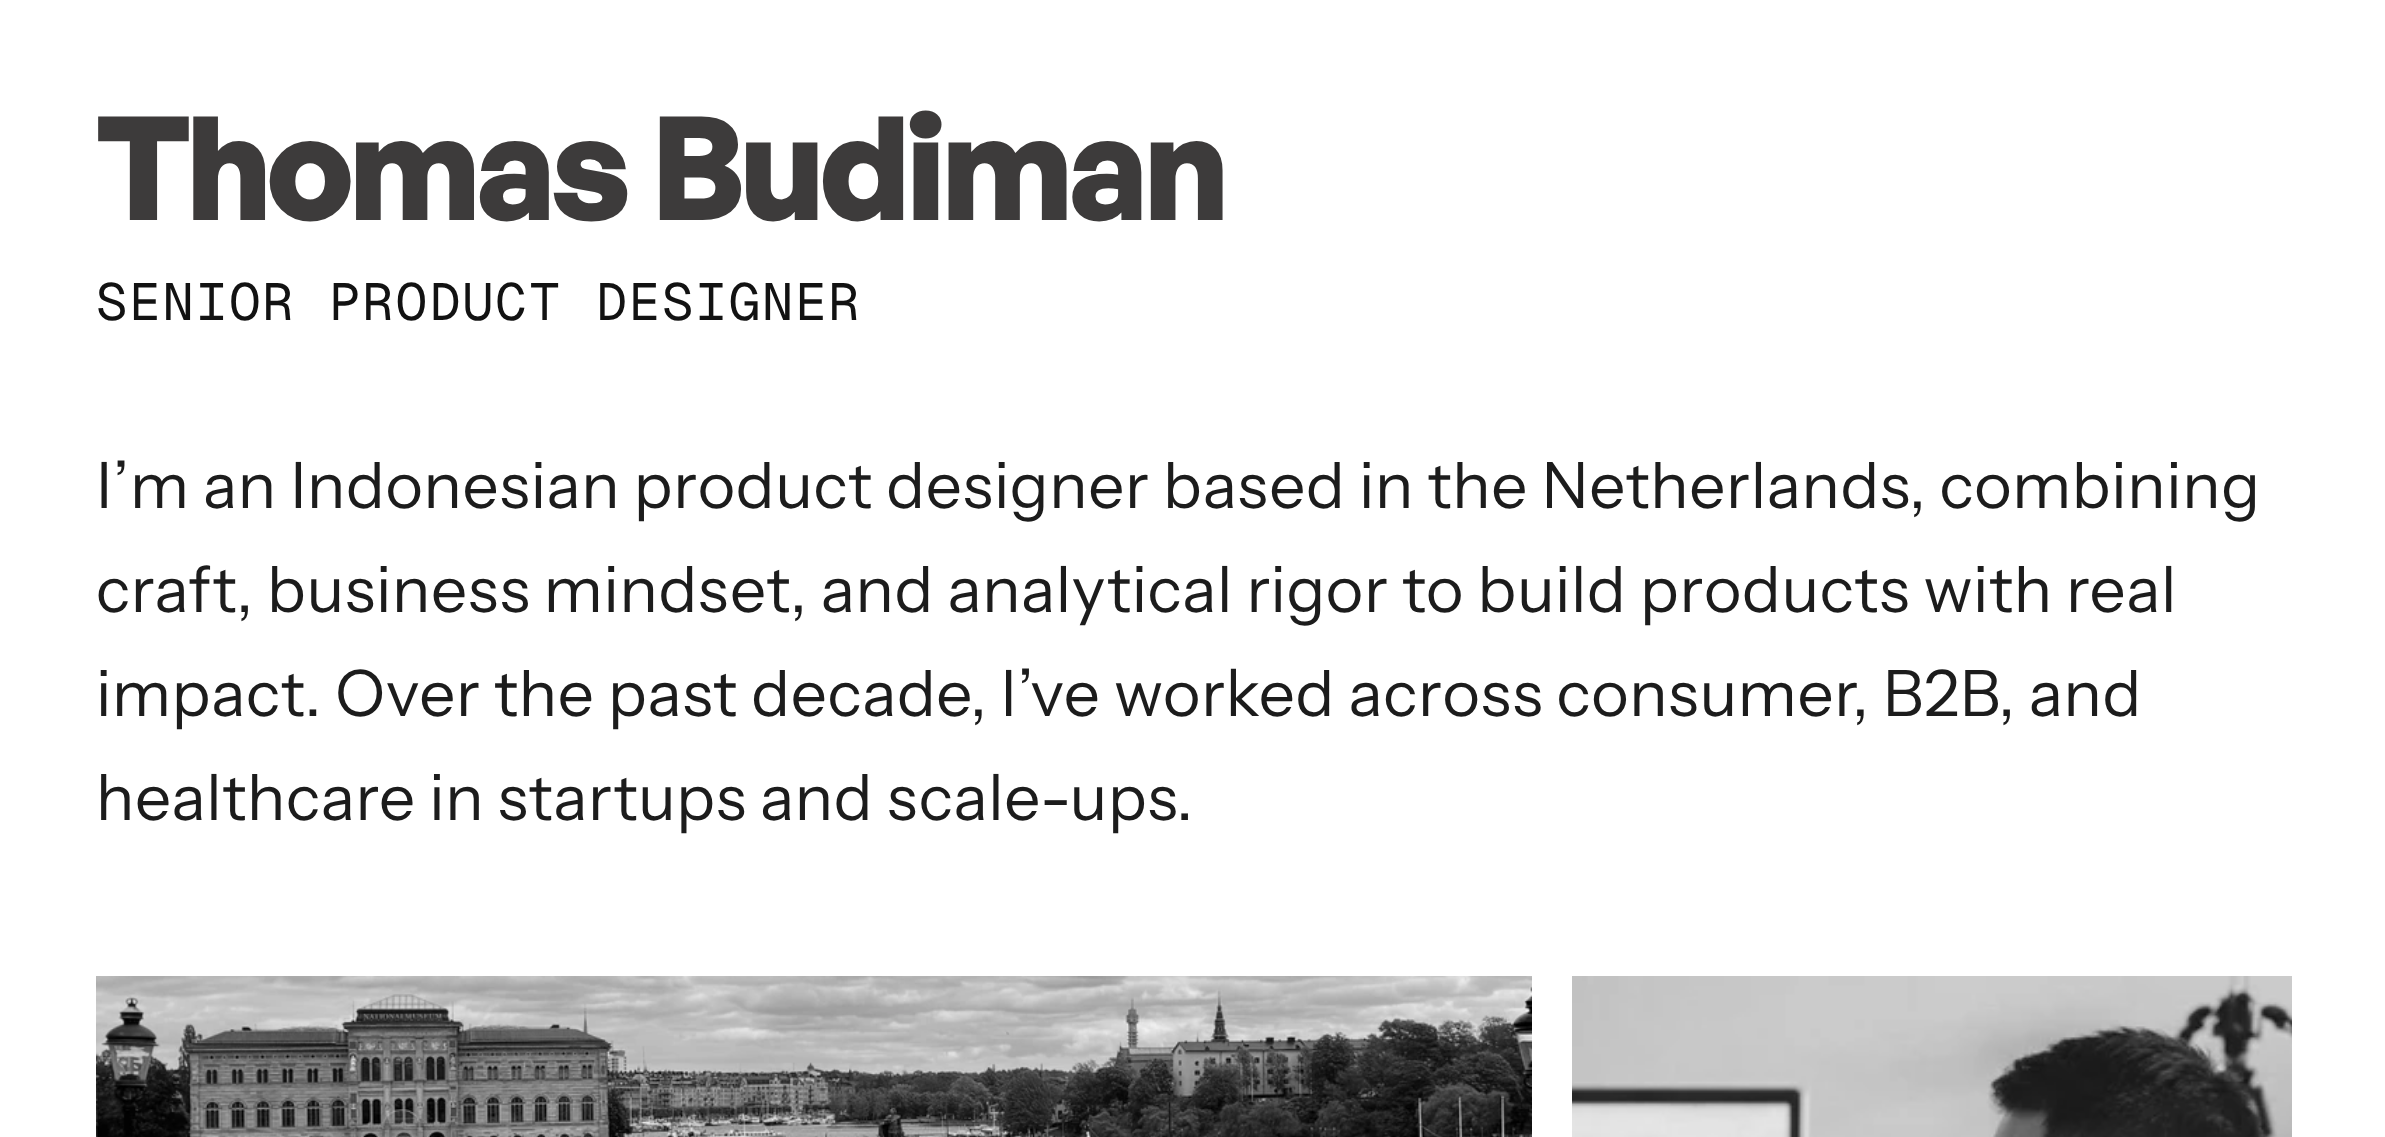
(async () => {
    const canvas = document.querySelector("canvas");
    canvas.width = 2385;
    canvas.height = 1137;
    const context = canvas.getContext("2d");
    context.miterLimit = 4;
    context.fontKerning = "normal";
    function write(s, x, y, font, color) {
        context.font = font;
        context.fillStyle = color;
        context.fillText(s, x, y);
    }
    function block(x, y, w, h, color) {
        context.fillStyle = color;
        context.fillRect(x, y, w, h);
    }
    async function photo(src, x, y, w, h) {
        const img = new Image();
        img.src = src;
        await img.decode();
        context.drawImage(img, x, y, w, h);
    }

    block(0, 0, 2385, 1137, "rgb(255, 255, 255)");
    context.letterSpacing = "-5.75px";
    write("Thomas Budiman", 96, 220, "bold 144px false", "rgb(61, 59, 59)");
    context.letterSpacing = "2.1px";
    write("SENIOR PRODUCT DESIGNER", 96, 320, "52px Geist Mono", "rgb(18, 18, 18)");
    context.letterSpacing = "0.65px";
    write("I’m an Indonesian product designer based in the Netherlands, combining", 96, 508, "64px Instrument Sans", "rgb(28, 28, 28)");
    write("craft, business mindset, and analytical rigor to build products with real", 96, 612, "64px Instrument Sans", "rgb(28, 28, 28)");
    write("impact. Over the past decade, I’ve worked across consumer, B2B, and", 96, 716, "64px Instrument Sans", "rgb(28, 28, 28)");
    write("healthcare in startups and scale-ups.", 96, 820, "64px Instrument Sans", "rgb(28, 28, 28)");
    await photo("media/1.png", 96, 976, 1436, 161);
    await photo("media/2.png", 1572, 976, 720, 161);
})();
